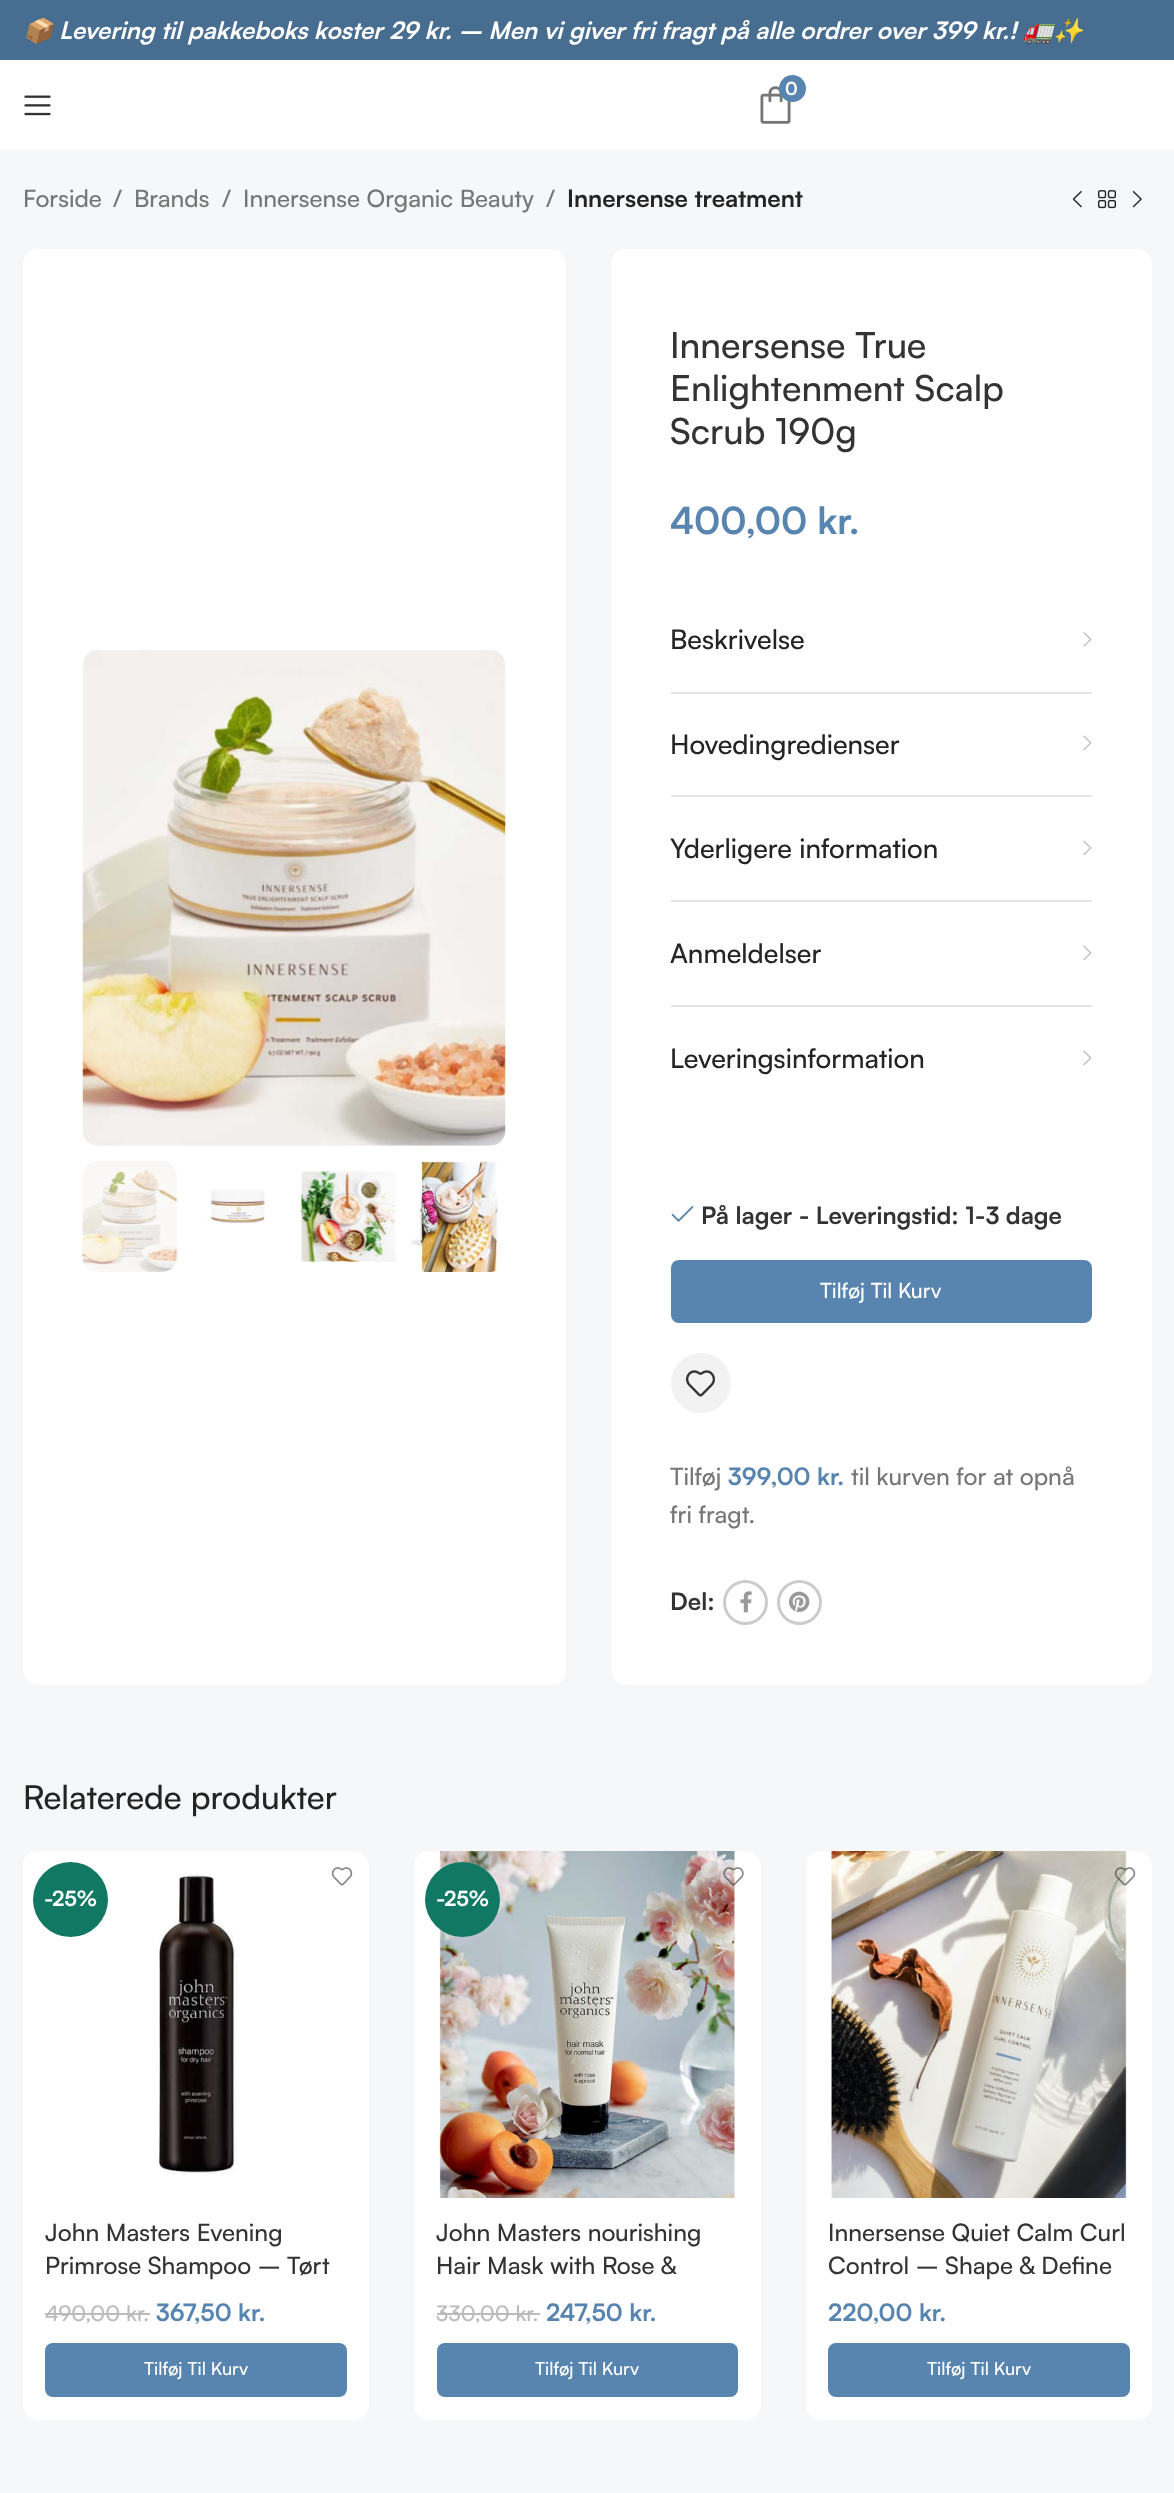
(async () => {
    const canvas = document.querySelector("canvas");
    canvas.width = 1174;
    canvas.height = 2493;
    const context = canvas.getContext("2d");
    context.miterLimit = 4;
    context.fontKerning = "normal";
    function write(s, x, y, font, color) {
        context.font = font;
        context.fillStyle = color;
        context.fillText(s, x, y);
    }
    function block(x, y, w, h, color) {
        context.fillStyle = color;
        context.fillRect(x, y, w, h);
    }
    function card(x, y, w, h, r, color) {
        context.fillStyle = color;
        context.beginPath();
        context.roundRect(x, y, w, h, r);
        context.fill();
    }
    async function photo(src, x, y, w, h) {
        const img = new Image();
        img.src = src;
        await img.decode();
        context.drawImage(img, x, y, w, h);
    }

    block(0, 0, 1174, 2493, "rgb(255, 255, 255)");
    block(0, 0, 1174, 60, "rgb(71, 109, 144)");
    write("📦", 23, 39, "italic 24px Noto Color Emoji", "rgb(255, 255, 255)");
    write("Levering til pakkeboks koster 29 kr. – Men vi giver fri fragt på alle ordrer over 399 kr.!", 59, 39, "italic bold 24px Satoshi", "rgb(255, 255, 255)");
    write("🚛✨", 1023, 39, "italic 24px Noto Color Emoji", "rgb(255, 255, 255)");
    await photo("media/1.png", 760, 86, 31, 38);
    context.fillStyle = "rgb(88, 133, 175)";
    context.beginPath();
    context.arc(792.5, 88.5, 13.5, 0, Math.PI * 2);
    context.fill();
    write("0", 785, 95, "bold 18px Satoshi", "rgb(255, 255, 255)");
    await photo("media/2.png", 24, 95, 27, 21);
    block(0, 150, 1174, 2343, "rgb(245, 247, 248)");
    write("Forside", 23, 207, "500 24px Satoshi", "rgb(118, 118, 118)");
    write("/", 113, 207, "500 24px Satoshi", "rgb(118, 118, 118)");
    write("Brands", 134, 207, "500 24px Satoshi", "rgb(118, 118, 118)");
    write("/", 222, 207, "500 24px Satoshi", "rgb(118, 118, 118)");
    write("Innersense Organic Beauty", 243, 207, "500 24px Satoshi", "rgb(118, 118, 118)");
    write("/", 546, 207, "500 24px Satoshi", "rgb(118, 118, 118)");
    write("Innersense treatment", 567, 207, "bold 24px Satoshi", "rgb(36, 36, 36)");
    await photo("media/3.png", 1072, 191, 10, 17);
    await photo("media/4.png", 1098, 190, 18, 19);
    await photo("media/5.png", 1132, 191, 10, 17);
    card(23, 249, 543, 1436, 15, "rgb(255, 255, 255)");
    await photo("media/6.png", 82, 650, 424, 496);
    await photo("media/7.png", 82, 1161, 96, 111);
    await photo("media/8.png", 207, 1189, 61, 34);
    await photo("media/9.png", 301, 1170, 95, 93);
    await photo("media/10.png", 411, 1161, 91, 111);
    card(611, 249, 541, 1436, 15, "rgb(255, 255, 255)");
    write("Innersense True", 670, 358, "500 36px Satoshi", "rgb(51, 51, 51)");
    write("Enlightenment Scalp", 670, 401, "500 36px Satoshi", "rgb(51, 51, 51)");
    write("Scrub 190g", 670, 444, "500 36px Satoshi", "rgb(51, 51, 51)");
    write("400,00 kr.", 670, 534, "bold 37.25px Satoshi", "rgb(88, 133, 175)");
    write("Beskrivelse", 670, 649, "500 27px Satoshi", "rgb(36, 36, 36)");
    await photo("media/11.png", 1083, 632, 9, 15);
    block(671, 692, 421, 2, "rgb(228, 228, 228)");
    write("Hovedingredienser", 670, 754, "500 27px Satoshi", "rgb(36, 36, 36)");
    await photo("media/12.png", 1083, 735, 9, 16);
    block(671, 795, 421, 2, "rgb(228, 228, 228)");
    write("Yderligere information", 670, 858, "500 27px Satoshi", "rgb(36, 36, 36)");
    await photo("media/12.png", 1083, 840, 9, 16);
    block(671, 900, 421, 2, "rgb(228, 228, 228)");
    write("Anmeldelser", 670, 963, "500 27px Satoshi", "rgb(36, 36, 36)");
    await photo("media/12.png", 1083, 945, 9, 16);
    block(671, 1005, 421, 2, "rgb(228, 228, 228)");
    write("Leveringsinformation", 670, 1068, "500 27px Satoshi", "rgb(36, 36, 36)");
    await photo("media/12.png", 1083, 1050, 9, 16);
    await photo("media/13.png", 671, 1206, 23, 16);
    write("På lager - Leveringstid: 1-3 dage", 701, 1224, "bold 24px Satoshi", "rgb(51, 51, 51)");
    card(671, 1260, 421, 63, 8, "rgb(88, 133, 175)");
    write("Tilføj Til Kurv", 820, 1298, "500 21px Satoshi", "rgb(255, 255, 255)");
    context.fillStyle = "rgb(242, 242, 242)";
    context.beginPath();
    context.arc(701, 1383, 30, 0, Math.PI * 2);
    context.fill();
    await photo("media/14.png", 686, 1370, 29, 27);
    write("Tilføj", 670, 1485, "500 24px Satoshi", "rgb(118, 118, 118)");
    write("399,00 kr.", 728, 1485, "bold 24px Satoshi", "rgb(88, 133, 175)");
    write("til kurven for at opnå", 851, 1485, "500 24px Satoshi", "rgb(118, 118, 118)");
    write("fri fragt.", 670, 1523, "500 24px Satoshi", "rgb(118, 118, 118)");
    write("Del:", 670, 1610, "bold 24px Satoshi", "rgb(51, 51, 51)");
    context.beginPath();
    context.arc(745.5, 1602.5, 21, 0, Math.PI * 2);
    context.strokeStyle = "rgb(204, 204, 204)";
    context.lineWidth = 3;
    context.stroke();
    await photo("media/15.png", 740, 1591, 12, 22);
    context.beginPath();
    context.arc(799.5, 1602.5, 21, 0, Math.PI * 2);
    context.stroke();
    await photo("media/16.png", 789, 1591, 21, 21);
    write("Relaterede produkter", 23, 1809, "500 33px Satoshi", "rgb(36, 36, 36)");
    card(23, 1851, 346, 569, 15, "rgb(255, 255, 255)");
    await photo("media/17.png", 331, 1867, 22, 19);
    await photo("media/18.png", 23, 1852, 215, 323);
    context.fillStyle = "rgb(17, 120, 100)";
    context.beginPath();
    context.arc(70.5, 1899.5, 37.5, 0, Math.PI * 2);
    context.fill();
    write("-25%", 44, 1906, "bold 21px Satoshi", "rgb(255, 255, 255)");
    write("John Masters Evening", 45, 2241, "500 24px Satoshi", "rgb(51, 51, 51)");
    write("Primrose Shampoo – Tørt", 45, 2274, "500 24px Satoshi", "rgb(51, 51, 51)");
    write("490,00 kr.", 45, 2321, "500 21.5px Satoshi", "rgb(187, 187, 187)");
    block(45, 2313, 105, 2, "rgb(187, 187, 187)");
    write("367,50 kr.", 156, 2321, "bold 24px Satoshi", "rgb(88, 133, 175)");
    card(45, 2343, 302, 54, 8, "rgb(88, 133, 175)");
    write("Tilføj Til Kurv", 144, 2375, "500 18px Satoshi", "rgb(255, 255, 255)");
    card(414, 1851, 347, 569, 15, "rgb(255, 255, 255)");
    await photo("media/20.png", 439, 1851, 296, 347);
    await photo("media/19.png", 723, 1867, 21, 19);
    context.fillStyle = "rgb(17, 120, 100)";
    context.beginPath();
    context.arc(462.5, 1899.5, 37.5, 0, Math.PI * 2);
    context.fill();
    write("-25%", 436, 1906, "bold 21px Satoshi", "rgb(255, 255, 255)");
    write("John Masters nourishing", 436, 2241, "500 24px Satoshi", "rgb(51, 51, 51)");
    write("Hair Mask with Rose &", 436, 2274, "500 24px Satoshi", "rgb(51, 51, 51)");
    write("330,00 kr.", 436, 2321, "500 21.5px Satoshi", "rgb(187, 187, 187)");
    block(437, 2313, 103, 2, "rgb(187, 187, 187)");
    write("247,50 kr.", 546, 2321, "bold 24px Satoshi", "rgb(88, 133, 175)");
    card(437, 2343, 301, 54, 8, "rgb(88, 133, 175)");
    write("Tilføj Til Kurv", 535, 2375, "500 18px Satoshi", "rgb(255, 255, 255)");
    card(806, 1851, 346, 569, 15, "rgb(255, 255, 255)");
    await photo("media/21.png", 806, 1851, 321, 347);
    await photo("media/22.png", 1114, 1867, 22, 19);
    write("Innersense Quiet Calm Curl", 828, 2241, "500 24px Satoshi", "rgb(51, 51, 51)");
    write("Control – Shape & Define", 828, 2274, "500 24px Satoshi", "rgb(51, 51, 51)");
    write("220,00 kr.", 828, 2321, "bold 24px Satoshi", "rgb(88, 133, 175)");
    card(828, 2343, 302, 54, 8, "rgb(88, 133, 175)");
    write("Tilføj Til Kurv", 927, 2375, "500 18px Satoshi", "rgb(255, 255, 255)");
})();
